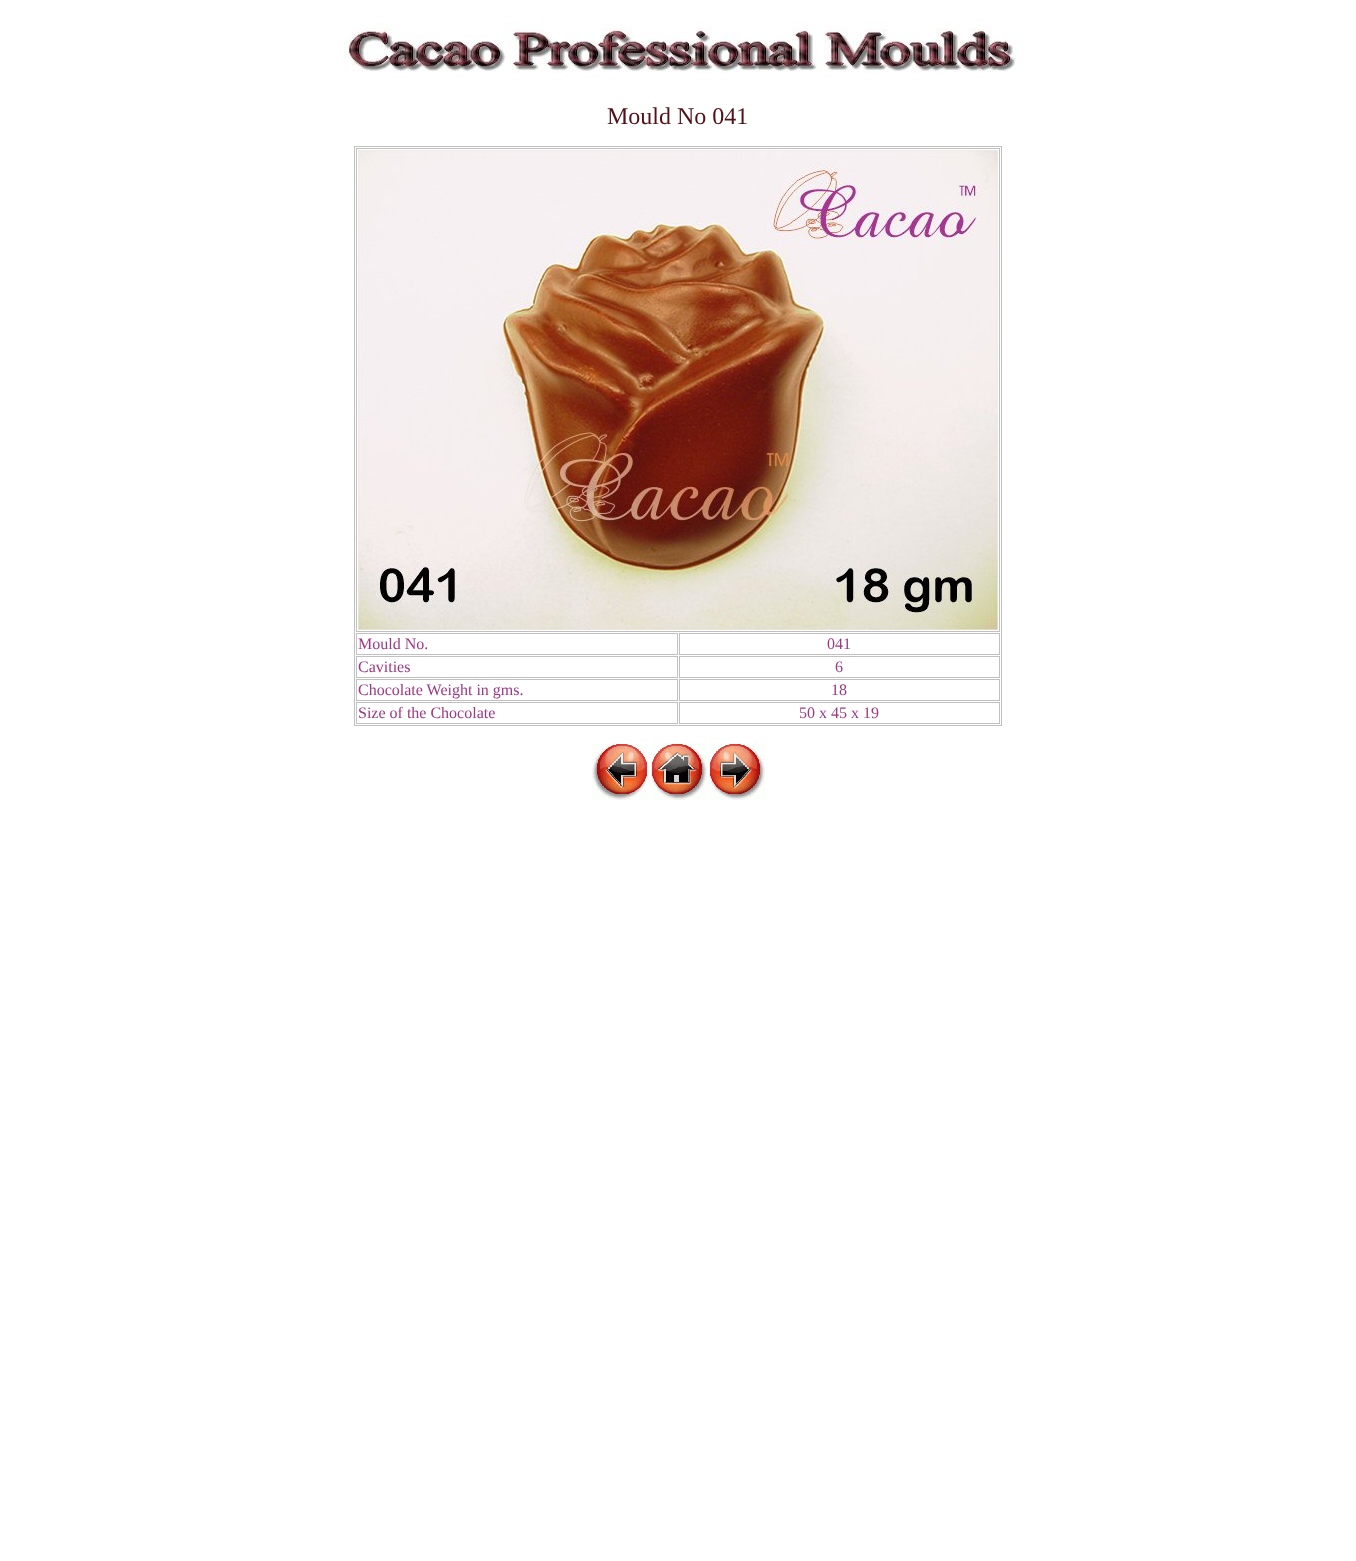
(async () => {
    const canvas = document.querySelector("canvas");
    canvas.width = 1356;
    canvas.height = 1561;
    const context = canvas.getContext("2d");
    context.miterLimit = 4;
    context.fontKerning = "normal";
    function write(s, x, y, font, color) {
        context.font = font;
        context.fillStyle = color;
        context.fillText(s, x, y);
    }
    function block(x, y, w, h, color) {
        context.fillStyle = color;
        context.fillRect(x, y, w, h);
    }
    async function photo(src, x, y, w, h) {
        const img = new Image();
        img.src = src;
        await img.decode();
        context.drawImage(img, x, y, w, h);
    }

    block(0, 0, 1356, 1561, "rgb(255, 255, 255)");
    await photo("media/1.png", 344, 22, 672, 50);
    write("Mould No 041", 607, 124, "24px Liberation Serif", "rgb(82, 16, 24)");
    context.strokeStyle = "rgb(192, 192, 192)";
    context.strokeRect(354.5, 146.5, 647, 579);
    context.strokeRect(356.5, 148.5, 643, 483);
    await photo("media/2.png", 358, 150, 640, 480);
    context.strokeRect(356.5, 633.5, 321, 21);
    write("Mould No.", 358, 649, "16px Liberation Serif", "rgb(156, 56, 132)");
    context.strokeRect(679.5, 633.5, 320, 21);
    write("041", 827, 649, "16px Liberation Serif", "rgb(156, 56, 132)");
    context.strokeRect(356.5, 656.5, 321, 21);
    write("Cavities", 358, 672, "16px Liberation Serif", "rgb(156, 56, 132)");
    context.strokeRect(679.5, 656.5, 320, 21);
    write("6", 835, 672, "16px Liberation Serif", "rgb(156, 56, 132)");
    context.strokeRect(356.5, 679.5, 321, 21);
    write("Chocolate Weight in gms.", 358, 695, "16px Liberation Serif", "rgb(156, 56, 132)");
    context.strokeRect(679.5, 679.5, 320, 21);
    write("18", 831, 695, "16px Liberation Serif", "rgb(156, 56, 132)");
    context.strokeRect(356.5, 702.5, 321, 21);
    write("Size of the Chocolate", 358, 718, "16px Liberation Serif", "rgb(156, 56, 132)");
    context.strokeRect(679.5, 702.5, 320, 21);
    write("50 x 45 x 19", 799, 718, "16px Liberation Serif", "rgb(156, 56, 132)");
    await photo("media/3.png", 592, 744, 56, 56);
    await photo("media/4.png", 651, 743, 56, 57);
    await photo("media/5.png", 709, 743, 56, 57);
})();
